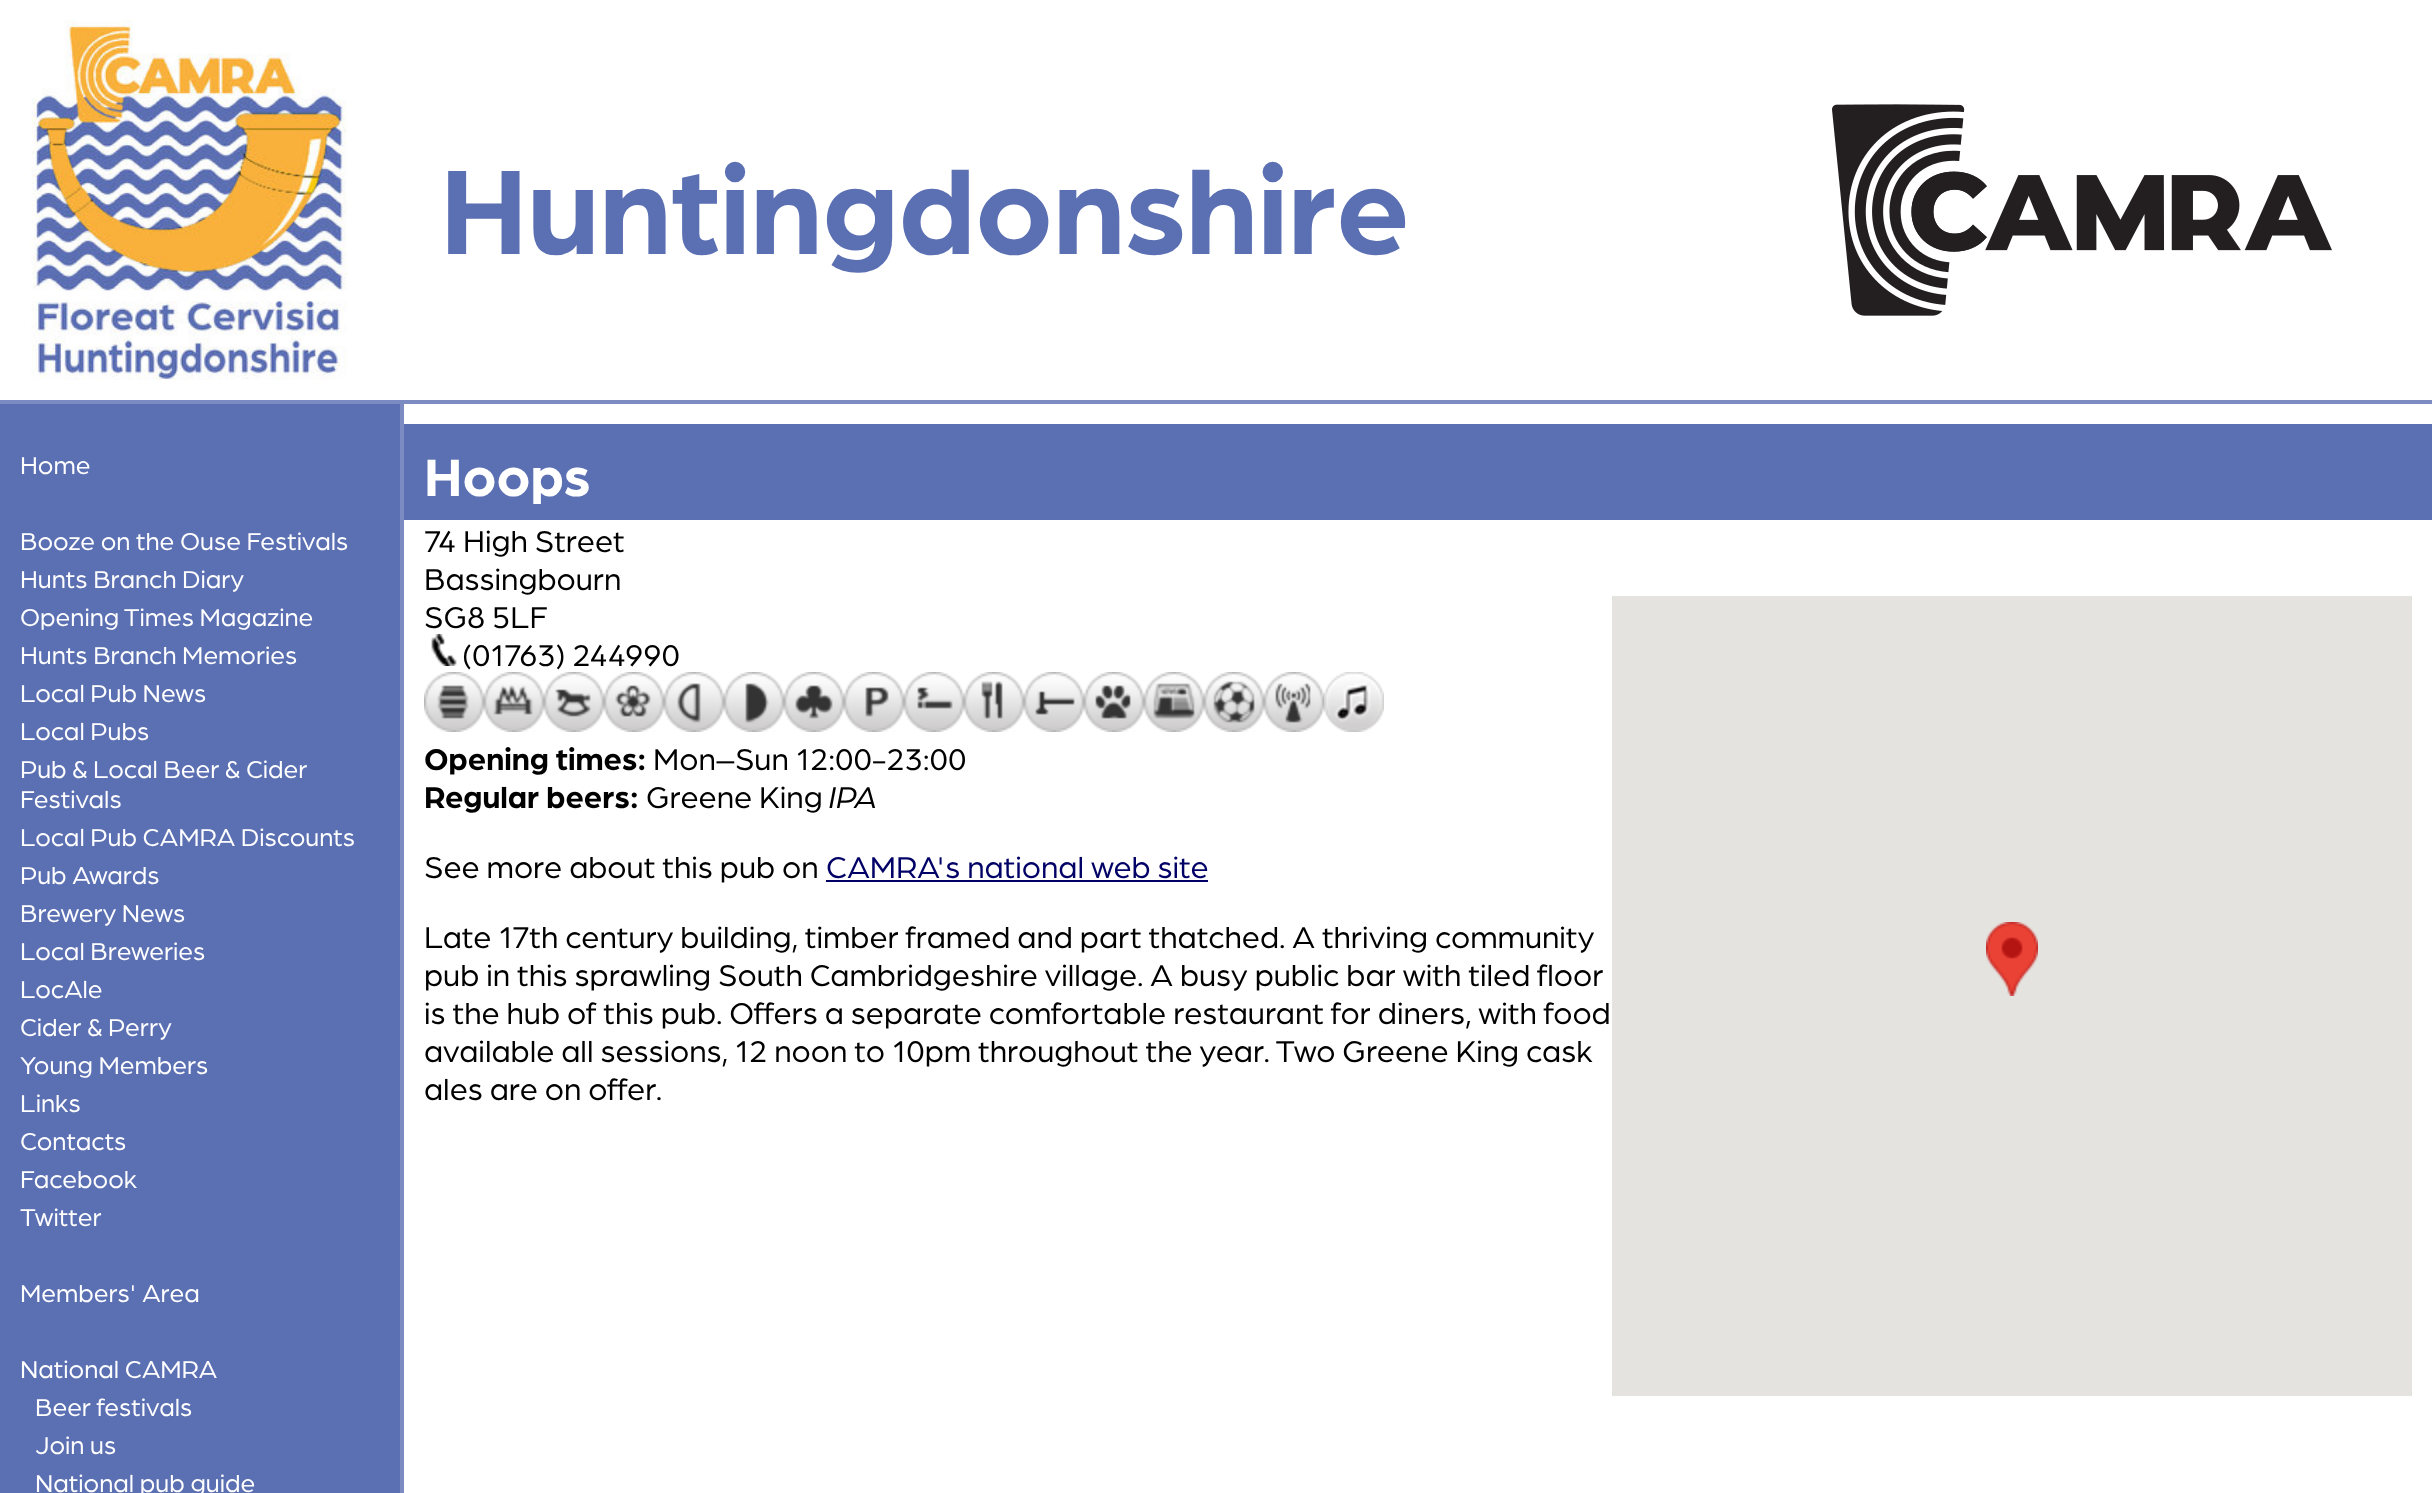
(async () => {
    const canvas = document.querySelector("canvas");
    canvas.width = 2432;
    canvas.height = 1493;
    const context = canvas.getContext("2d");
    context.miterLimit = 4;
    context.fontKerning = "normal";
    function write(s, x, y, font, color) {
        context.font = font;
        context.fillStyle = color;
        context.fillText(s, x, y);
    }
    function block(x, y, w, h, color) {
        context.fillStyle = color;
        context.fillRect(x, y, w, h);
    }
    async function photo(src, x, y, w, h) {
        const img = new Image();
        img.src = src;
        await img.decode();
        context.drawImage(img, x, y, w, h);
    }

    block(0, 0, 2432, 1493, "rgb(255, 255, 255)");
    block(0, 400, 2432, 4, "rgb(124, 140, 194)");
    await photo("media/1.png", 31, 20, 316, 360);
    write("Huntingdonshire", 440, 254, "bold 128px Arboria", "rgb(91, 111, 179)");
    await photo("media/2.png", 1832, 104, 500, 212);
    block(0, 404, 400, 1089, "rgb(91, 111, 179)");
    block(400, 404, 4, 1089, "rgb(124, 140, 194)");
    write("Home", 20, 474, "26px Arboria", "rgb(255, 255, 255)");
    write("Booze on the Ouse Festivals", 20, 550, "26px Arboria", "rgb(255, 255, 255)");
    write("Hunts Branch Diary", 20, 588, "26px Arboria", "rgb(255, 255, 255)");
    write("Opening Times Magazine", 20, 626, "26px Arboria", "rgb(255, 255, 255)");
    write("Hunts Branch Memories", 20, 664, "26px Arboria", "rgb(255, 255, 255)");
    write("Local Pub News", 20, 702, "26px Arboria", "rgb(255, 255, 255)");
    write("Local Pubs", 20, 740, "26px Arboria", "rgb(255, 255, 255)");
    write("Pub & Local Beer & Cider", 20, 778, "26px Arboria", "rgb(255, 255, 255)");
    write("Festivals", 20, 808, "26px Arboria", "rgb(255, 255, 255)");
    write("Local Pub CAMRA Discounts", 20, 846, "26px Arboria", "rgb(255, 255, 255)");
    write("Pub Awards", 20, 884, "26px Arboria", "rgb(255, 255, 255)");
    write("Brewery News", 20, 922, "26px Arboria", "rgb(255, 255, 255)");
    write("Local Breweries", 20, 960, "26px Arboria", "rgb(255, 255, 255)");
    write("LocAle", 20, 998, "26px Arboria", "rgb(255, 255, 255)");
    write("Cider & Perry", 20, 1036, "26px Arboria", "rgb(255, 255, 255)");
    write("Young Members", 20, 1074, "26px Arboria", "rgb(255, 255, 255)");
    write("Links", 20, 1112, "26px Arboria", "rgb(255, 255, 255)");
    write("Contacts", 20, 1150, "26px Arboria", "rgb(255, 255, 255)");
    write("Facebook", 20, 1188, "26px Arboria", "rgb(255, 255, 255)");
    write("Twitter", 20, 1226, "26px Arboria", "rgb(255, 255, 255)");
    write("Members' Area", 20, 1302, "26px Arboria", "rgb(255, 255, 255)");
    write("National CAMRA", 20, 1378, "26px Arboria", "rgb(255, 255, 255)");
    write("Beer festivals", 35, 1416, "26px Arboria", "rgb(255, 255, 255)");
    write("Join us", 35, 1454, "26px Arboria", "rgb(255, 255, 255)");
    write("National pub guide", 35, 1492, "26px Arboria", "rgb(255, 255, 255)");
    block(404, 424, 2028, 96, "rgb(91, 111, 179)");
    write("Hoops", 424, 496, "bold 56px Arboria", "rgb(255, 255, 255)");
    write("74 High Street", 424, 552, "32px Arboria", "rgb(0, 0, 0)");
    write("Bassingbourn", 424, 590, "32px Arboria", "rgb(0, 0, 0)");
    write("SG8 5LF", 424, 628, "32px Arboria", "rgb(0, 0, 0)");
    block(1612, 596, 800, 800, "rgb(229, 227, 223)");
    await photo("media/3.png", 1986, 922, 52, 74);
    await photo("media/4.png", 431, 634, 26, 32);
    write("(01763) 244990", 462, 666, "32px Arboria", "rgb(0, 0, 0)");
    await photo("media/5.png", 424, 672, 60, 60);
    await photo("media/6.png", 484, 672, 60, 60);
    await photo("media/7.png", 544, 672, 60, 60);
    await photo("media/8.png", 604, 672, 60, 60);
    await photo("media/9.png", 664, 672, 60, 60);
    await photo("media/10.png", 724, 672, 60, 60);
    await photo("media/11.png", 784, 672, 60, 60);
    await photo("media/12.png", 844, 672, 60, 60);
    await photo("media/13.png", 904, 672, 60, 60);
    await photo("media/14.png", 964, 672, 60, 60);
    await photo("media/15.png", 1024, 672, 60, 60);
    await photo("media/16.png", 1084, 672, 60, 60);
    await photo("media/17.png", 1144, 672, 60, 60);
    await photo("media/18.png", 1204, 672, 60, 60);
    await photo("media/19.png", 1264, 672, 60, 60);
    await photo("media/20.png", 1324, 672, 60, 60);
    write("Opening times:", 424, 770, "bold 32px Arboria", "rgb(0, 0, 0)");
    write("Mon–Sun 12:00-23:00", 653, 770, "32px Arboria", "rgb(0, 0, 0)");
    write("Regular beers:", 424, 808, "bold 32px Arboria", "rgb(0, 0, 0)");
    write("Greene King", 646, 808, "32px Arboria", "rgb(0, 0, 0)");
    write("IPA", 829, 808, "italic 32px Arboria", "rgb(0, 0, 0)");
    write("See more about this pub on", 424, 878, "32px Arboria", "rgb(0, 0, 0)");
    write("CAMRA's national web site", 826, 878, "32px Arboria", "rgb(0, 0, 102)");
    block(826, 880, 382, 2, "rgb(0, 0, 102)");
    write("Late 17th century building, timber framed and part thatched. A thriving community", 424, 948, "32px Arboria", "rgb(0, 0, 0)");
    write("pub in this sprawling South Cambridgeshire village. A busy public bar with tiled floor", 424, 986, "32px Arboria", "rgb(0, 0, 0)");
    write("is the hub of this pub. Offers a separate comfortable restaurant for diners, with food", 424, 1024, "32px Arboria", "rgb(0, 0, 0)");
    write("available all sessions, 12 noon to 10pm throughout the year. Two Greene King cask", 424, 1062, "32px Arboria", "rgb(0, 0, 0)");
    write("ales are on offer.", 424, 1100, "32px Arboria", "rgb(0, 0, 0)");
})();
